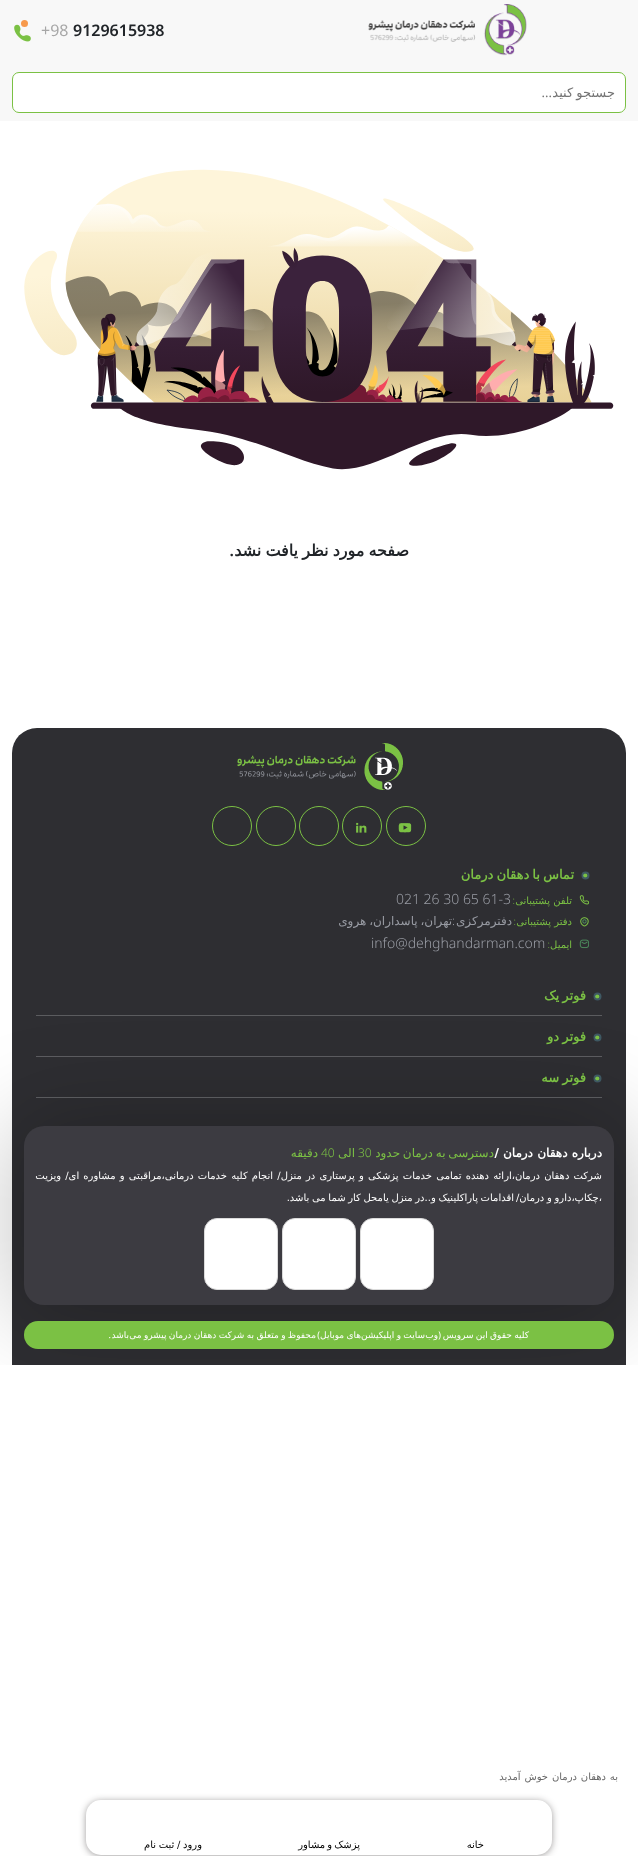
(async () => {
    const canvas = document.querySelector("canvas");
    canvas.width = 638;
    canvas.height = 1856;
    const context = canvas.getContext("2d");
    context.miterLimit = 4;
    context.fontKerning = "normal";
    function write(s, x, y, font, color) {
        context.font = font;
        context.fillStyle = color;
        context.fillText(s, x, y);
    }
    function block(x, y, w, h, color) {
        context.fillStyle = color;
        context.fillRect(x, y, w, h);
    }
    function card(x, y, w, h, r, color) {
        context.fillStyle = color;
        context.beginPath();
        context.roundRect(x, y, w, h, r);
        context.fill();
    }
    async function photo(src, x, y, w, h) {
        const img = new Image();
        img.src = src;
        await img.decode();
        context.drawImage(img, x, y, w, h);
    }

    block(0, 0, 638, 1856, "rgb(255, 255, 255)");
    block(0, 0, 638, 121, "rgb(248, 248, 248)");
    await photo("media/1.png", 368, 4, 159, 52);
    write("9129615938", 73, 36, "600 16px Noto Sans", "rgb(33, 37, 41)");
    write("+98", 41, 36, "16px Noto Sans", "rgb(167, 167, 167)");
    await photo("media/2.png", 14, 24, 17, 18);
    context.fillStyle = "rgb(247, 154, 76)";
    context.beginPath();
    context.arc(24.5, 23.5, 3.5, 0, Math.PI * 2);
    context.fill();
    context.fillStyle = "rgb(255, 255, 255)";
    context.beginPath();
    context.roundRect(12.5, 72.5, 613, 40, 6.5);
    context.fill();
    context.strokeStyle = "rgb(123, 193, 68)";
    context.stroke();
    context.wordSpacing = "-1px";
    context.direction = "rtl";
    write("جستجو کنید", 615, 97, "13px DejaVu Sans", "rgb(117, 117, 117)");
    context.wordSpacing = "0px";
    write("...", 552, 97, "13px Noto Sans", "rgb(117, 117, 117)");
    await photo("media/3.png", 24, 169, 590, 301);
    context.wordSpacing = "-1px";
    write("صفحه مورد نظر یافت نشد", 409, 556, "bold 16px DejaVu Sans", "rgb(33, 37, 41)");
    context.wordSpacing = "0px";
    write(".", 234, 556, "600 16px Noto Sans", "rgb(33, 37, 41)");
    context.fillStyle = "rgb(46, 46, 50)";
    context.beginPath();
    context.roundRect(12, 728, 614, 637, [25, 25, 0, 0]);
    context.fill();
    await photo("media/4.png", 237, 743, 166, 47);
    context.beginPath();
    context.arc(406, 826, 19.5, 0, Math.PI * 2);
    context.stroke();
    await photo("media/5.png", 398, 823, 14, 10);
    context.beginPath();
    context.arc(362, 826, 19.5, 0, Math.PI * 2);
    context.stroke();
    await photo("media/6.png", 356, 822, 11, 11);
    context.beginPath();
    context.arc(319, 826, 19.5, 0, Math.PI * 2);
    context.stroke();
    context.beginPath();
    context.arc(276, 826, 19.5, 0, Math.PI * 2);
    context.stroke();
    context.beginPath();
    context.arc(232, 826, 19.5, 0, Math.PI * 2);
    context.stroke();
    context.fillStyle = "rgb(123, 193, 68)";
    context.beginPath();
    context.arc(585.3, 875.5, 2.1, 0, Math.PI * 2);
    context.fill();
    context.beginPath();
    context.arc(585.5, 875.5, 3, 0, Math.PI * 2);
    context.strokeStyle = "rgba(116, 221, 247, 0.25)";
    context.lineWidth = 2;
    context.stroke();
    context.wordSpacing = "-1px";
    write("تماس با دهقان درمان", 574, 879, "bold 13px DejaVu Sans", "rgb(123, 193, 68)");
    await photo("media/7.png", 579, 895, 10, 10);
    context.wordSpacing = "0px";
    write("تلفن پشتیبانی", 572, 904, "10px DejaVu Sans", "rgb(123, 193, 68)");
    write(":", 515, 904, "300 10px Noto Sans", "rgb(123, 193, 68)");
    context.direction = "ltr";
    write("021 26 30 65 61-3", 396, 904, "300 14px Noto Sans", "rgb(152, 155, 163)");
    await photo("media/8.png", 580, 917, 9, 10);
    context.direction = "rtl";
    write("دفتر پشتیبانی", 572, 925, "10px DejaVu Sans", "rgb(123, 193, 68)");
    write(":", 516, 925, "300 10px Noto Sans", "rgb(123, 193, 68)");
    write("دفترمرکزی", 512, 925, "12px DejaVu Sans", "rgb(152, 155, 163)");
    write(":", 455, 925, "300 12px Noto Sans", "rgb(152, 155, 163)");
    context.wordSpacing = "-1px";
    write("تهران، پاسداران، هروی", 452, 925, "12px DejaVu Sans", "rgb(152, 155, 163)");
    await photo("media/9.png", 579, 939, 10, 10);
    context.wordSpacing = "0px";
    write("ایمیل", 572, 948, "10px DejaVu Sans", "rgb(123, 193, 68)");
    write(":", 550, 948, "300 10px Noto Sans", "rgb(123, 193, 68)");
    context.direction = "ltr";
    write("info@dehghandarman.com", 371, 948, "300 14px Noto Sans", "rgb(152, 155, 163)");
    context.save();
    context.beginPath();
    context.rect(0, 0, 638, 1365);
    context.clip();
    context.fillStyle = "rgba(0, 0, 0, 0.25)";
    context.filter = "blur(47px)";
    context.beginPath();
    context.roundRect(16, 1122, 606, 195, 28);
    context.fill();
    context.filter = "none";
    context.restore();
    block(36, 1015, 566, 1, "rgb(91, 92, 95)");
    context.fillStyle = "rgb(123, 193, 68)";
    context.beginPath();
    context.arc(597.3, 996.5, 2.1, 0, Math.PI * 2);
    context.fill();
    context.beginPath();
    context.arc(597.5, 996.5, 3, 0, Math.PI * 2);
    context.stroke();
    context.wordSpacing = "-1px";
    context.direction = "rtl";
    write("فوتر یک", 586, 1000, "bold 13px DejaVu Sans", "rgb(123, 193, 68)");
    block(36, 1056, 566, 1, "rgb(91, 91, 95)");
    context.fillStyle = "rgb(123, 193, 68)";
    context.beginPath();
    context.arc(597.3, 1037.5, 2.1, 0, Math.PI * 2);
    context.fill();
    context.beginPath();
    context.arc(597.5, 1037.5, 3, 0, Math.PI * 2);
    context.stroke();
    write("فوتر دو", 586, 1041, "bold 13px DejaVu Sans", "rgb(123, 193, 68)");
    block(36, 1097, 566, 1, "rgb(89, 90, 93)");
    context.fillStyle = "rgb(123, 193, 68)";
    context.beginPath();
    context.arc(597.3, 1078.5, 2.1, 0, Math.PI * 2);
    context.fill();
    context.beginPath();
    context.arc(597.5, 1078.5, 3, 0, Math.PI * 2);
    context.stroke();
    write("فوتر سه", 586, 1082, "bold 13px DejaVu Sans", "rgb(123, 193, 68)");
    card(24, 1126, 590, 179, 20, "rgb(60, 59, 65)");
    context.wordSpacing = "0.5px";
    write("درباره دهقان درمان /", 602, 1157, "bold 12px DejaVu Sans", "rgb(255, 255, 255)");
    context.wordSpacing = "-1px";
    write("دسترسی به درمان حدود", 494, 1157, "12px DejaVu Sans", "rgb(123, 193, 68)");
    context.wordSpacing = "0px";
    context.direction = "ltr";
    write("30", 358, 1157, "300 12px Noto Sans", "rgb(123, 193, 68)");
    context.direction = "rtl";
    write("الی", 355, 1157, "12px DejaVu Sans", "rgb(123, 193, 68)");
    context.direction = "ltr";
    write("40", 321, 1157, "300 12px Noto Sans", "rgb(123, 193, 68)");
    context.direction = "rtl";
    write("دقیقه", 318, 1157, "12px DejaVu Sans", "rgb(123, 193, 68)");
    context.wordSpacing = "1px";
    write("شرکت دهقان درمان،ارائه دهنده تمامی", 602, 1179, "10px DejaVu Sans", "rgb(255, 255, 255)");
    write("خدمات پزشکی و پرستاری در منزل/ انجام کلیه خدمات درمانی،مراقبتی و مشاوره ای/ ویزیت", 432, 1179, "10px DejaVu Sans", "rgb(255, 255, 255)");
    context.wordSpacing = "-0.5px";
    write("،چکاپ،دارو و درمان/", 602, 1201, "10px DejaVu Sans", "rgb(255, 255, 255)");
    write("اقدامات پاراکلینیک و..در منزل یامحل کار شما می باشد.", 514, 1201, "10px DejaVu Sans", "rgb(255, 255, 255)");
    context.beginPath();
    context.roundRect(360.5, 1218.5, 73, 71, 12.5);
    context.fill();
    context.strokeStyle = "rgb(219, 219, 219)";
    context.lineWidth = 1;
    context.stroke();
    context.beginPath();
    context.roundRect(282.5, 1218.5, 73, 71, 12.5);
    context.fill();
    context.stroke();
    context.beginPath();
    context.roundRect(204.5, 1218.5, 73, 71, 12.5);
    context.fill();
    context.stroke();
    card(24, 1321, 590, 28, 14, "rgb(123, 193, 68)");
    write("کلیه حقوق این سرویس", 529, 1338, "9px DejaVu Sans", "rgb(255, 255, 255)");
    context.wordSpacing = "0px";
    write("(", 441, 1338, "9px Noto Sans", "rgb(255, 255, 255)");
    write("وب", 438, 1338, "9px DejaVu Sans", "rgb(255, 255, 255)");
    context.wordSpacing = "-0.5px";
    write("سایت و اپلیکیشن", 425, 1338, "9px DejaVu Sans", "rgb(255, 255, 255)");
    write("های موبایل", 361, 1338, "9px DejaVu Sans", "rgb(255, 255, 255)");
    context.wordSpacing = "0px";
    write(")", 320, 1338, "9px Noto Sans", "rgb(255, 255, 255)");
    context.wordSpacing = "-0.5px";
    write("محفوظ و متعلق به شرکت دهقان درمان پیشرو می", 316, 1338, "9px DejaVu Sans", "rgb(255, 255, 255)");
    context.wordSpacing = "0px";
    write("باشد", 129, 1338, "9px DejaVu Sans", "rgb(255, 255, 255)");
    write(".", 111, 1338, "9px Noto Sans", "rgb(255, 255, 255)");
    context.letterSpacing = "-0.3px";
    context.wordSpacing = "1px";
    write("به دهقان درمان خوش آمدید", 618, 1780, "10px DejaVu Sans", "rgb(102, 102, 102)");
    context.fillStyle = "rgba(21, 16, 16, 0.41)";
    context.filter = "blur(3.5px)";
    context.beginPath();
    context.roundRect(86, 1801, 466, 55, 15);
    context.fill();
    context.filter = "none";
    card(86, 1800, 466, 55, 15, "rgb(255, 255, 255)");
    context.letterSpacing = "0px";
    context.wordSpacing = "0px";
    write("خانه", 484, 1848, "10px DejaVu Sans", "rgb(0, 0, 0)");
    context.wordSpacing = "-1px";
    write("پزشک و مشاور", 360, 1848, "10px DejaVu Sans", "rgb(0, 0, 0)");
    context.wordSpacing = "-0.5px";
    write("ورود / ثبت نام", 202, 1848, "10px DejaVu Sans", "rgb(0, 0, 0)");
})();
